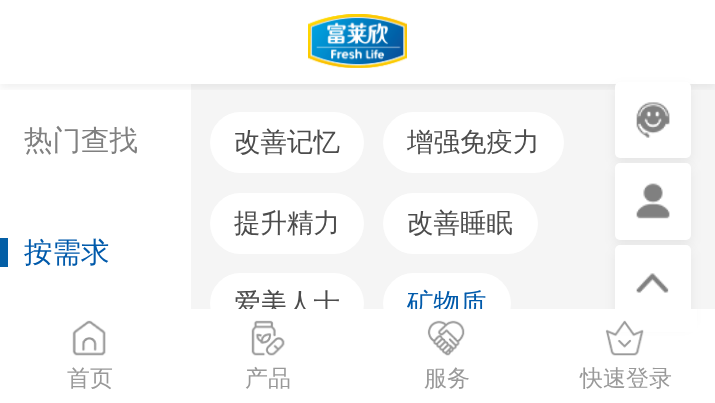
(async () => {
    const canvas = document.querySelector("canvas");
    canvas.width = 715;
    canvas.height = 403;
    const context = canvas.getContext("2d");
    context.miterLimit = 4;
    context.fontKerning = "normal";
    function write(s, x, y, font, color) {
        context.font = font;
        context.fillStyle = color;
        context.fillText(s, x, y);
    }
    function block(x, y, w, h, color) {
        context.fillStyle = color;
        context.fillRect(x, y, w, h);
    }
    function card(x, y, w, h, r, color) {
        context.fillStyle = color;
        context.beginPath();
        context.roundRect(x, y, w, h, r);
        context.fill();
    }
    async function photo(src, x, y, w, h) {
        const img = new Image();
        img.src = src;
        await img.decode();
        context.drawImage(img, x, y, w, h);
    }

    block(0, 0, 715, 403, "rgb(255, 255, 255)");
    block(191, 84, 524, 225, "rgb(245, 245, 245)");
    context.save();
    context.beginPath();
    context.rect(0, 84, 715, 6);
    context.clip();
    context.fillStyle = "rgba(0, 0, 0, 0.06)";
    context.filter = "blur(4px)";
    context.beginPath();
    context.rect(0, 4, 715, 84);
    context.fill();
    context.filter = "none";
    context.restore();
    await photo("media/1.png", 308, 14, 99, 54);
    write("热门查找", 24, 150, "500 28.5px WenQuanYi Zen Hei", "rgb(128, 128, 128)");
    block(0, 238, 8, 29, "rgb(4, 95, 166)");
    write("按需求", 24, 262, "500 28.5px WenQuanYi Zen Hei", "rgb(0, 90, 171)");
    card(210, 112, 154, 61, 30.5, "rgb(255, 255, 255)");
    write("改善记忆", 234, 151, "500 26.5px WenQuanYi Zen Hei", "rgb(76, 76, 76)");
    card(383, 112, 181, 61, 30.5, "rgb(255, 255, 255)");
    write("增强免疫力", 407, 151, "500 26.5px WenQuanYi Zen Hei", "rgb(76, 76, 76)");
    card(210, 193, 154, 61, 30.5, "rgb(255, 255, 255)");
    write("提升精力", 234, 232, "500 26.5px WenQuanYi Zen Hei", "rgb(76, 76, 76)");
    card(383, 193, 155, 61, 30.5, "rgb(255, 255, 255)");
    write("改善睡眠", 407, 232, "500 26.5px WenQuanYi Zen Hei", "rgb(76, 76, 76)");
    card(210, 273, 154, 61, 30.5, "rgb(255, 255, 255)");
    write("爱美人士", 234, 312, "500 26.5px WenQuanYi Zen Hei", "rgb(76, 76, 76)");
    card(383, 273, 128, 61, 30.5, "rgb(255, 255, 255)");
    write("矿物质", 407, 312, "500 26.5px WenQuanYi Zen Hei", "rgb(0, 90, 171)");
    context.fillStyle = "rgba(0, 0, 0, 0.06)";
    context.filter = "blur(6px)";
    context.beginPath();
    context.roundRect(615, 87, 76, 76, 5);
    context.fill();
    context.filter = "none";
    card(615, 82, 76, 76, 5, "rgb(255, 255, 255)");
    await photo("media/2.png", 636, 102, 34, 36);
    context.fillStyle = "rgba(0, 0, 0, 0.06)";
    context.filter = "blur(6px)";
    context.beginPath();
    context.roundRect(615, 168, 76, 77, 5);
    context.fill();
    context.filter = "none";
    card(615, 163, 76, 77, 5, "rgb(255, 255, 255)");
    await photo("media/3.png", 636, 183, 34, 36);
    context.fillStyle = "rgba(0, 0, 0, 0.06)";
    context.filter = "blur(6px)";
    context.beginPath();
    context.roundRect(615, 250, 76, 76, 5);
    context.fill();
    context.filter = "none";
    card(615, 245, 76, 76, 5, "rgb(255, 255, 255)");
    await photo("media/4.png", 636, 273, 33, 20);
    block(234, 309, 463, 23, "rgb(255, 255, 255)");
    await photo("media/5.png", 72, 320, 34, 36);
    write("首页", 67, 386, "500 23px WenQuanYi Zen Hei", "rgb(153, 153, 153)");
    await photo("media/6.png", 251, 320, 34, 36);
    write("产品", 245, 386, "500 23px WenQuanYi Zen Hei", "rgb(153, 153, 153)");
    await photo("media/7.png", 427, 320, 38, 36);
    write("服务", 424, 386, "500 23px WenQuanYi Zen Hei", "rgb(153, 153, 153)");
    await photo("media/8.png", 605, 320, 39, 36);
    write("快速登录", 580, 386, "500 23px WenQuanYi Zen Hei", "rgb(153, 153, 153)");
})();
